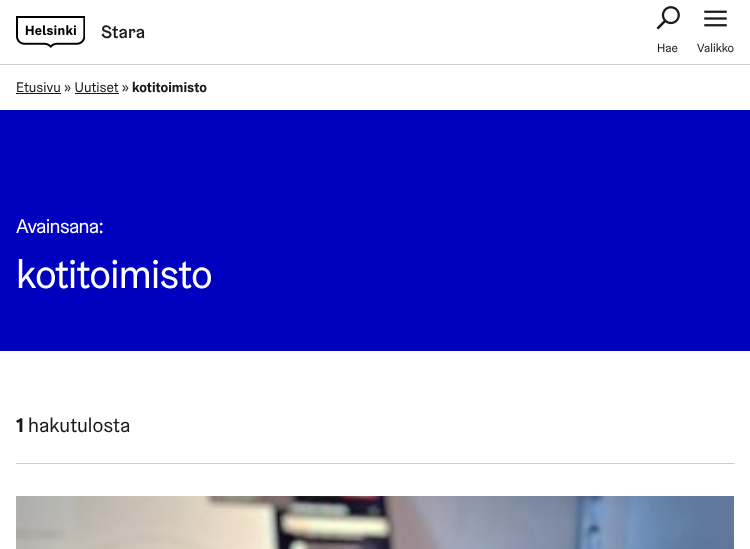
(async () => {
    const canvas = document.querySelector("canvas");
    canvas.width = 750;
    canvas.height = 549;
    const context = canvas.getContext("2d");
    context.miterLimit = 4;
    context.fontKerning = "normal";
    function write(s, x, y, font, color) {
        context.font = font;
        context.fillStyle = color;
        context.fillText(s, x, y);
    }
    function block(x, y, w, h, color) {
        context.fillStyle = color;
        context.fillRect(x, y, w, h);
    }
    async function photo(src, x, y, w, h) {
        const img = new Image();
        img.src = src;
        await img.decode();
        context.drawImage(img, x, y, w, h);
    }

    block(0, 0, 750, 549, "rgb(255, 255, 255)");
    block(0, 64, 750, 1, "rgb(204, 204, 204)");
    await photo("media/1.png", 16, 16, 69, 32);
    write("Stara", 101, 38, "500 18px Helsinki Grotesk", "rgb(26, 26, 26)");
    await photo("media/2.png", 656, 6, 24, 24);
    write("Hae", 657, 52, "12px Helsinki Grotesk", "rgb(26, 26, 26)");
    await photo("media/3.png", 704, 10, 23, 17);
    write("Valikko", 697, 52, "12px Helsinki Grotesk", "rgb(26, 26, 26)");
    write("Etusivu » Uutiset »", 16, 92, "14px Helsinki Grotesk", "rgb(26, 26, 26)");
    block(16, 93, 45, 1, "rgb(26, 26, 26)");
    write("kotitoimisto", 132, 92, "bold 14px Helsinki Grotesk", "rgb(26, 26, 26)");
    block(75, 93, 44, 1, "rgb(26, 26, 26)");
    block(0, 110, 750, 241, "rgb(0, 0, 191)");
    context.letterSpacing = "-0.75px";
    write("Avainsana:", 16, 233, "20px Helsinki Grotesk", "rgb(255, 255, 255)");
    write("kotitoimisto", 16, 288, "40px Helsinki Grotesk", "rgb(255, 255, 255)");
    context.letterSpacing = "0px";
    write("1", 16, 432, "bold 20px Helsinki Grotesk", "rgb(26, 26, 26)");
    write("hakutulosta", 28, 432, "20px Helsinki Grotesk", "rgb(26, 26, 26)");
    block(16, 463, 718, 1, "rgb(204, 204, 204)");
    await photo("media/4.png", 16, 496, 718, 53);
})();
